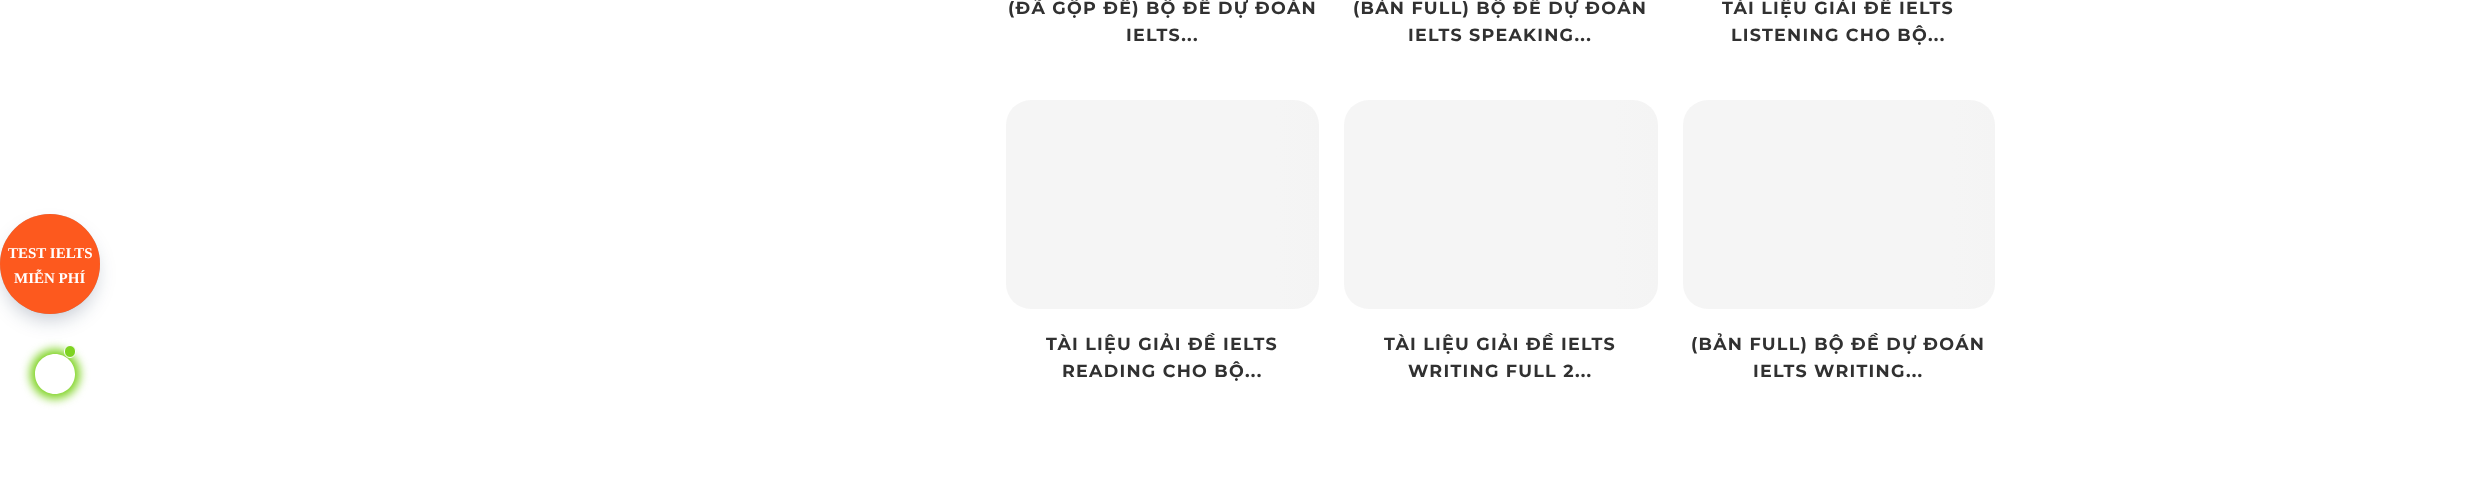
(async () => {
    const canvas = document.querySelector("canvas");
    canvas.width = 2490;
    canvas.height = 502;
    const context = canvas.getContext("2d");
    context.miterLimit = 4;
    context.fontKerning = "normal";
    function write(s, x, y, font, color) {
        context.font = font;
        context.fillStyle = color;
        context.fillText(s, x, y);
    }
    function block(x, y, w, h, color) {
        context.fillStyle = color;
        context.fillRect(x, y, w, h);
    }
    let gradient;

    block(0, 0, 2490, 502, "rgb(255, 255, 255)");
    context.fillStyle = "rgba(9, 30, 66, 0.31)";
    context.filter = "blur(0.5px)";
    context.beginPath();
    context.roundRect(0, 214, 100, 100, 50);
    context.fill();
    context.filter = "none";
    context.save();
    context.beginPath();
    context.moveTo(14, 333);
    context.lineTo(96, 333);
    context.lineTo(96, 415);
    context.lineTo(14, 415);
    context.closePath();
    context.moveTo(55, 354);
    context.bezierCurveTo(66, 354, 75, 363, 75, 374);
    context.bezierCurveTo(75, 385, 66, 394, 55, 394);
    context.bezierCurveTo(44, 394, 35, 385, 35, 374);
    context.bezierCurveTo(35, 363, 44, 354, 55, 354);
    context.closePath();
    context.clip("evenodd");
    context.fillStyle = "rgb(126, 211, 33)";
    context.filter = "blur(5px)";
    context.beginPath();
    context.roundRect(30, 349, 50, 50, 25);
    context.fill();
    context.filter = "none";
    context.restore();
    context.fillStyle = "rgb(126, 211, 33)";
    context.beginPath();
    context.roundRect(64.5, 345.5, 11, 12, 5.5);
    context.fill();
    context.strokeStyle = "rgb(255, 255, 255)";
    context.stroke();
    context.fillStyle = "rgba(9, 30, 66, 0.25)";
    context.filter = "blur(10px)";
    context.beginPath();
    context.roundRect(5, 229, 90, 90, 45);
    context.fill();
    context.filter = "none";
    context.fillStyle = "rgb(253, 89, 30)";
    context.beginPath();
    context.arc(50, 264, 50, 0, Math.PI * 2);
    context.fill();
    write("TEST IELTS", 8, 258, "bold 15px Liberation Serif", "rgb(255, 255, 255)");
    write("MIỄN PHÍ", 14, 283, "bold 15px Liberation Serif", "rgb(255, 255, 255)");
    context.letterSpacing = "1.25px";
    write("(ĐÃ GỘP ĐỀ) BỘ ĐỀ DỰ ĐOÁN", 1008, 14, "bold 17.5px Montserrat", "rgb(49, 49, 49)");
    write("IELTS...", 1126, 41, "bold 17.5px Montserrat", "rgb(49, 49, 49)");
    write("(BẢN FULL) BỘ ĐỀ DỰ ĐOÁN", 1353, 14, "bold 17.5px Montserrat", "rgb(49, 49, 49)");
    write("IELTS SPEAKING...", 1408, 41, "bold 17.5px Montserrat", "rgb(49, 49, 49)");
    write("TÀI LIỆU GIẢI ĐỀ IELTS", 1722, 14, "bold 17.5px Montserrat", "rgb(49, 49, 49)");
    write("LISTENING CHO BỘ...", 1731, 41, "bold 17.5px Montserrat", "rgb(49, 49, 49)");
    gradient = context.createLinearGradient(1725, 204, 600, 204);
    gradient.addColorStop(0, "rgb(245, 245, 245)");
    gradient.addColorStop(0.15, "rgb(239, 239, 239)");
    gradient.addColorStop(0.4, "rgb(245, 245, 245)");
    gradient.addColorStop(1, "rgb(245, 245, 245)");
    context.fillStyle = gradient;
    context.beginPath();
    context.roundRect(1006, 100, 313, 209, 25);
    context.fill();
    write("TÀI LIỆU GIẢI ĐỀ IELTS", 1046, 350, "bold 17.5px Montserrat", "rgb(49, 49, 49)");
    write("READING CHO BỘ...", 1062, 377, "bold 17.5px Montserrat", "rgb(49, 49, 49)");
    gradient = context.createLinearGradient(2063, 204, 938, 204);
    gradient.addColorStop(0, "rgb(245, 245, 245)");
    gradient.addColorStop(0.15, "rgb(239, 239, 239)");
    gradient.addColorStop(0.4, "rgb(245, 245, 245)");
    gradient.addColorStop(1, "rgb(245, 245, 245)");
    context.fillStyle = gradient;
    context.beginPath();
    context.roundRect(1344, 100, 314, 209, 25);
    context.fill();
    write("TÀI LIỆU GIẢI ĐỀ IELTS", 1384, 350, "bold 17.5px Montserrat", "rgb(49, 49, 49)");
    write("WRITING FULL 2...", 1408, 377, "bold 17.5px Montserrat", "rgb(49, 49, 49)");
    gradient = context.createLinearGradient(2401, 204, 1276, 204);
    gradient.addColorStop(0, "rgb(245, 245, 245)");
    gradient.addColorStop(0.15, "rgb(239, 239, 239)");
    gradient.addColorStop(0.4, "rgb(245, 245, 245)");
    gradient.addColorStop(1, "rgb(245, 245, 245)");
    context.fillStyle = gradient;
    context.beginPath();
    context.roundRect(1683, 100, 312, 209, 25);
    context.fill();
    write("(BẢN FULL) BỘ ĐỀ DỰ ĐOÁN", 1691, 350, "bold 17.5px Montserrat", "rgb(49, 49, 49)");
    write("IELTS WRITING...", 1753, 377, "bold 17.5px Montserrat", "rgb(49, 49, 49)");
})();
